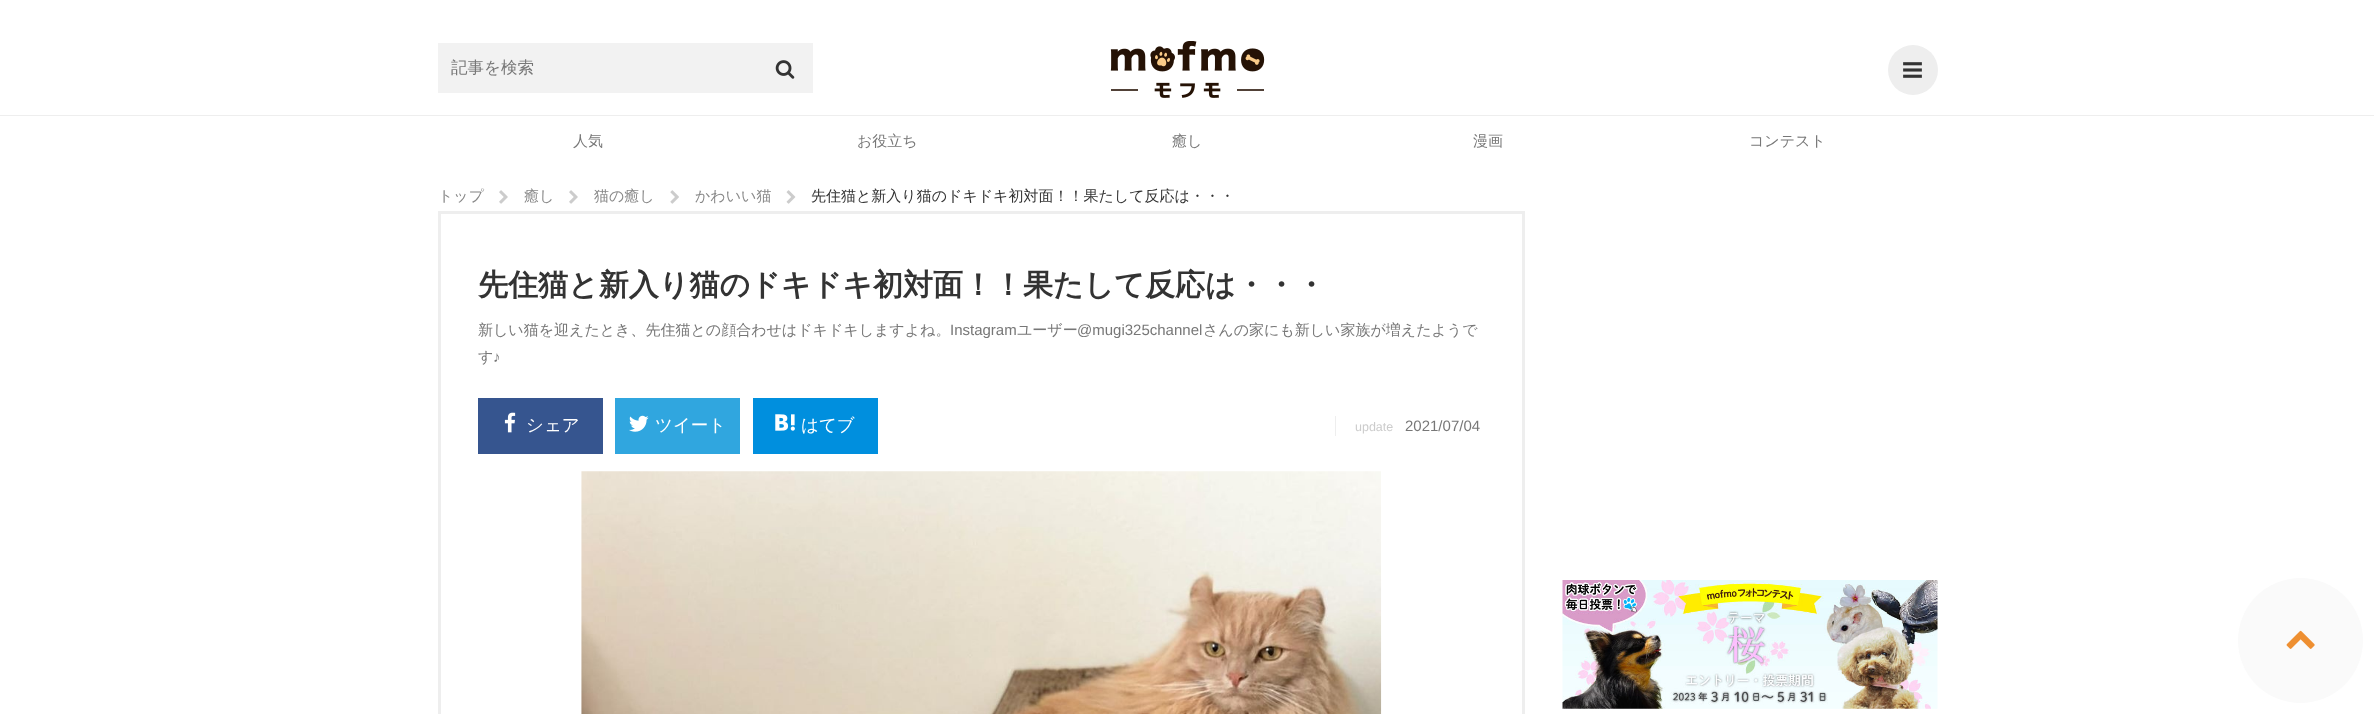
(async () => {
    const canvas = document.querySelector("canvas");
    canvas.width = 2374;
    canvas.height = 714;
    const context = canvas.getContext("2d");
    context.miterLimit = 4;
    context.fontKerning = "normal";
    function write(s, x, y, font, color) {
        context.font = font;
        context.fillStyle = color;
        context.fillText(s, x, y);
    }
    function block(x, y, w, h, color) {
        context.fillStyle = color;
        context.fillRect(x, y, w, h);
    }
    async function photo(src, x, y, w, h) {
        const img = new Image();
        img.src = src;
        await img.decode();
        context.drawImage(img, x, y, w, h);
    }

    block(0, 0, 2374, 714, "rgb(255, 255, 255)");
    block(0, 115, 2374, 1, "rgb(238, 238, 238)");
    block(438, 43, 375, 50, "rgb(242, 242, 242)");
    write("記事を検索", 451, 73, "500 16.5px WenQuanYi Zen Hei", "rgb(119, 119, 119)");
    await photo("media/1.png", 775, 60, 20, 19);
    await photo("media/2.png", 1110, 41, 155, 57);
    context.fillStyle = "rgb(238, 238, 238)";
    context.beginPath();
    context.arc(1913, 70, 25, 0, Math.PI * 2);
    context.fill();
    await photo("media/3.png", 1903, 62, 19, 16);
    write("人気", 573, 146, "500 15px WenQuanYi Zen Hei", "rgb(119, 119, 119)");
    write("お役立ち", 857, 146, "500 15px WenQuanYi Zen Hei", "rgb(119, 119, 119)");
    write("癒し", 1172, 146, "500 15px WenQuanYi Zen Hei", "rgb(119, 119, 119)");
    write("漫画", 1473, 146, "500 15px WenQuanYi Zen Hei", "rgb(119, 119, 119)");
    write("コンテスト", 1749, 146, "500 15px WenQuanYi Zen Hei", "rgb(119, 119, 119)");
    write("トップ", 438, 201, "500 15px WenQuanYi Zen Hei", "rgb(136, 136, 136)");
    await photo("media/4.png", 499, 190, 9, 14);
    write("癒し", 524, 201, "500 15px WenQuanYi Zen Hei", "rgb(136, 136, 136)");
    await photo("media/4.png", 569, 190, 9, 14);
    write("猫の癒し", 594, 201, "500 15px WenQuanYi Zen Hei", "rgb(136, 136, 136)");
    await photo("media/5.png", 670, 190, 9, 14);
    write("かわいい猫", 695, 201, "500 15px WenQuanYi Zen Hei", "rgb(136, 136, 136)");
    await photo("media/6.png", 786, 190, 10, 14);
    write("先住猫と新入り猫のドキドキ初対面！！果たして反応は・・・", 811, 201, "500 15px WenQuanYi Zen Hei", "rgb(51, 51, 51)");
    context.strokeStyle = "rgb(238, 238, 238)";
    context.lineWidth = 3;
    context.strokeRect(439.5, 212.5, 1084, 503);
    write("先住猫と新入り猫のドキドキ初対面！！果たして反応は・・・", 478, 295, "bold 30px WenQuanYi Zen Hei", "rgb(51, 51, 51)");
    write("新しい猫を迎えたとき、先住猫との顔合わせはドキドキしますよね。", 478, 335, "500 15px WenQuanYi Zen Hei", "rgb(119, 119, 119)");
    write("Instagram", 950, 335, "15px Liberation Sans", "rgb(119, 119, 119)");
    write("ユーザー", 1017, 335, "500 15px WenQuanYi Zen Hei", "rgb(119, 119, 119)");
    write("@mugi325channel", 1077, 335, "15px Liberation Sans", "rgb(119, 119, 119)");
    write("さんの家にも新しい家族が増えたようで", 1203, 335, "500 15px WenQuanYi Zen Hei", "rgb(119, 119, 119)");
    write("す", 478, 362, "500 15px WenQuanYi Zen Hei", "rgb(119, 119, 119)");
    write("♪", 493, 362, "15px Liberation Sans", "rgb(119, 119, 119)");
    block(478, 398, 125, 56, "rgb(54, 85, 143)");
    await photo("media/7.png", 504, 412, 12, 21);
    write("シェア", 526, 431, "500 17.5px WenQuanYi Zen Hei", "rgb(255, 255, 255)");
    block(615, 398, 125, 56, "rgb(48, 166, 223)");
    await photo("media/8.png", 629, 415, 20, 17);
    write("ツイート", 655, 431, "500 17.5px WenQuanYi Zen Hei", "rgb(255, 255, 255)");
    block(753, 398, 125, 56, "rgb(0, 143, 222)");
    await photo("media/9.png", 775, 414, 20, 17);
    write("はてブ", 801, 431, "500 17.5px WenQuanYi Zen Hei", "rgb(255, 255, 255)");
    block(1335, 416, 1, 20, "rgb(238, 238, 238)");
    write("update", 1355, 431, "12.5px Liberation Sans", "rgb(204, 204, 204)");
    write("2021/07/04", 1405, 431, "15px Liberation Sans", "rgb(119, 119, 119)");
    await photo("media/10.png", 581, 471, 801, 243);
    await photo("media/11.png", 1562, 580, 376, 129);
    context.fillStyle = "rgb(250, 250, 250)";
    context.beginPath();
    context.arc(2300.5, 640.5, 62.5, 0, Math.PI * 2);
    context.fill();
    await photo("media/12.png", 2286, 630, 29, 19);
})();
